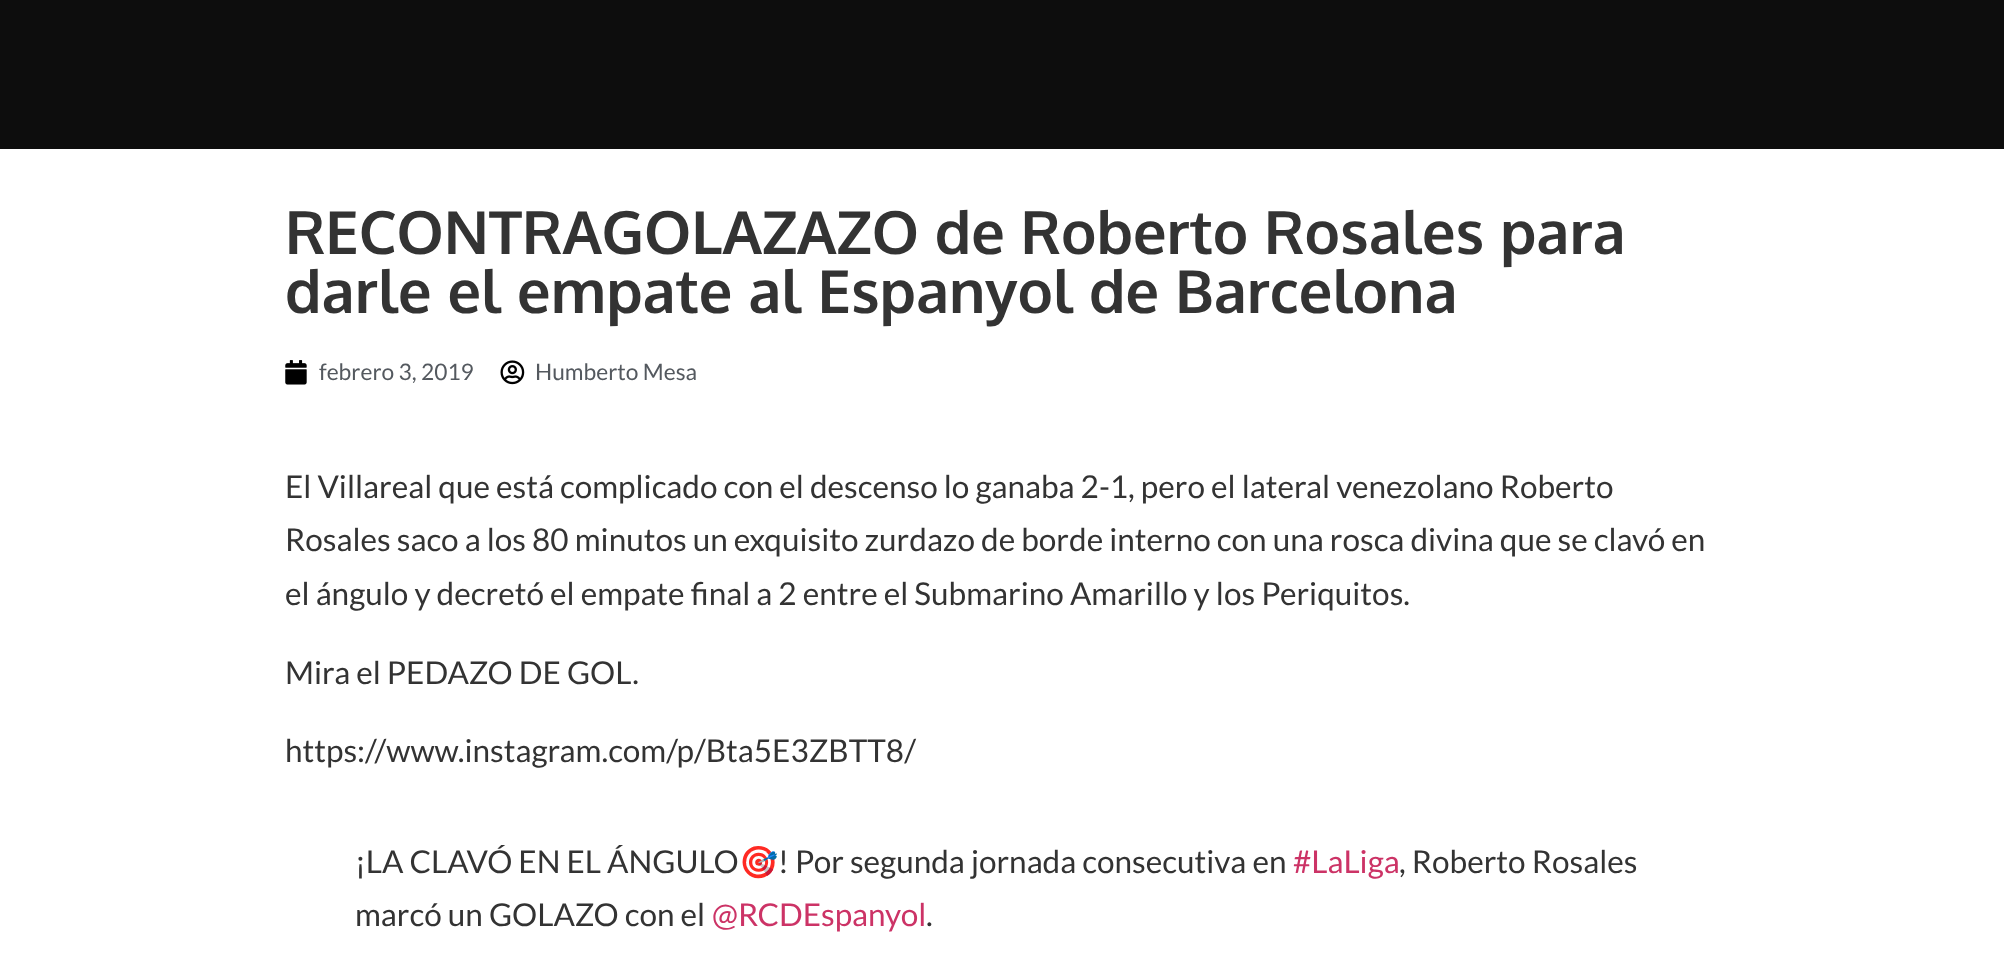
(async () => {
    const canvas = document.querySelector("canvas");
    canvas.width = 2004;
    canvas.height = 979;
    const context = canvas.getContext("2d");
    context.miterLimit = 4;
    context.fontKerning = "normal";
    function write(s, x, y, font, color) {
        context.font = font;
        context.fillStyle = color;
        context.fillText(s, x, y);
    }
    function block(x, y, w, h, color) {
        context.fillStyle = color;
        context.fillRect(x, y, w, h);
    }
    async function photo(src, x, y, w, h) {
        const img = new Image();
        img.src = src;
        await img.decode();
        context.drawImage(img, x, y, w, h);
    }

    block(0, 0, 2004, 979, "rgb(255, 255, 255)");
    block(0, 0, 2004, 149, "rgb(13, 13, 13)");
    write("RECONTRAGOLAZAZO de Roberto Rosales para", 285, 254, "bold 59.5px Oxygen", "rgb(51, 51, 51)");
    write("darle el empate al Espanyol de Barcelona", 285, 313, "bold 59.5px Oxygen", "rgb(51, 51, 51)");
    await photo("media/1.png", 285, 360, 22, 25);
    write("febrero 3, 2019", 319, 380, "22.75px Lato", "rgb(84, 89, 95)");
    await photo("media/2.png", 500, 360, 25, 25);
    write("Humberto Mesa", 535, 380, "22.75px Lato", "rgb(84, 89, 95)");
    write("El Villareal que está complicado con el descenso lo ganaba 2-1, pero el lateral venezolano Roberto", 285, 498, "31.5px Lato", "rgb(51, 51, 51)");
    write("Rosales saco a los 80 minutos un exquisito zurdazo de borde interno con una rosca divina que se clavó en", 285, 551, "31.5px Lato", "rgb(51, 51, 51)");
    write("el ángulo y decretó el empate final a 2 entre el Submarino Amarillo y los Periquitos.", 285, 605, "31.5px Lato", "rgb(51, 51, 51)");
    write("Mira el PEDAZO DE GOL.", 285, 684, "31.5px Lato", "rgb(51, 51, 51)");
    write("https://www.instagram.com/p/Bta5E3ZBTT8/", 285, 762, "31.5px Lato", "rgb(51, 51, 51)");
    write("¡LA CLAVÓ EN EL ÁNGULO", 355, 873, "31.5px Lato", "rgb(51, 51, 51)");
    write("🎯", 739, 873, "31.5px Noto Color Emoji", "rgb(51, 51, 51)");
    write("! Por segunda jornada consecutiva en", 778, 873, "31.5px Lato", "rgb(51, 51, 51)");
    write("#LaLiga", 1293, 873, "31.5px Lato", "rgb(204, 51, 102)");
    write(", Roberto Rosales", 1399, 873, "31.5px Lato", "rgb(51, 51, 51)");
    write("marcó un GOLAZO con el", 355, 926, "31.5px Lato", "rgb(51, 51, 51)");
    write("@RCDEspanyol", 712, 926, "31.5px Lato", "rgb(204, 51, 102)");
    write(".", 926, 926, "31.5px Lato", "rgb(51, 51, 51)");
})();
